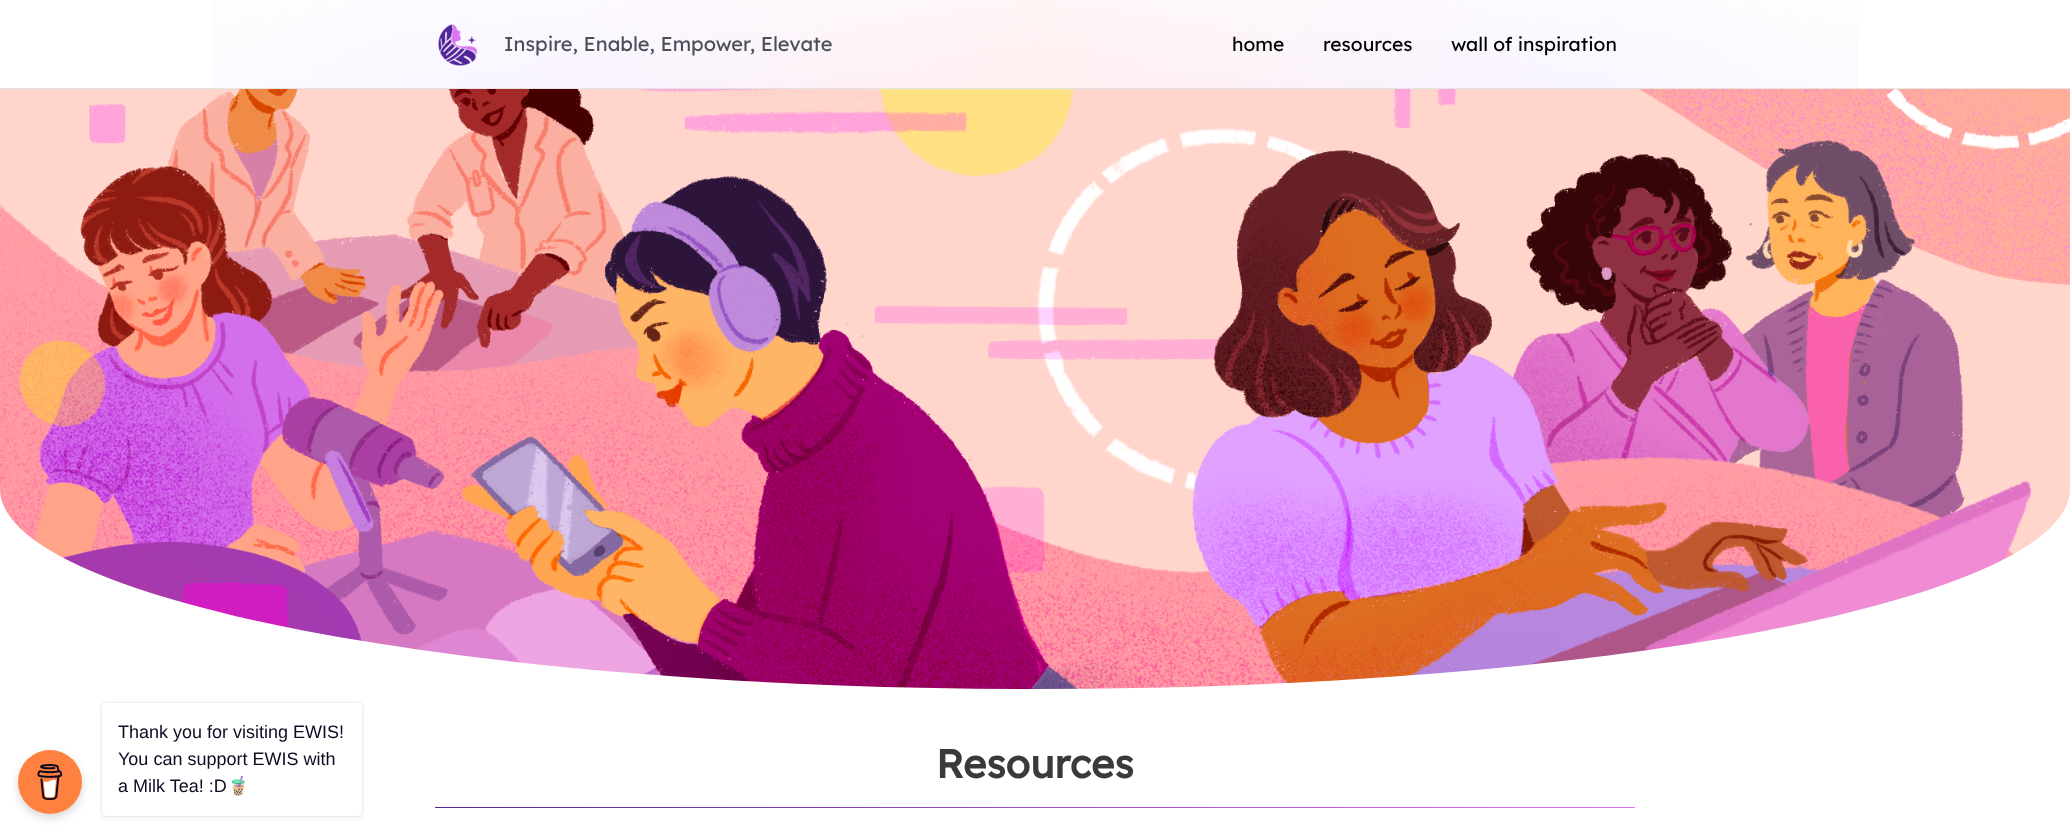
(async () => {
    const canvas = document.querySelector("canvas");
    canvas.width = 2070;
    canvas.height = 832;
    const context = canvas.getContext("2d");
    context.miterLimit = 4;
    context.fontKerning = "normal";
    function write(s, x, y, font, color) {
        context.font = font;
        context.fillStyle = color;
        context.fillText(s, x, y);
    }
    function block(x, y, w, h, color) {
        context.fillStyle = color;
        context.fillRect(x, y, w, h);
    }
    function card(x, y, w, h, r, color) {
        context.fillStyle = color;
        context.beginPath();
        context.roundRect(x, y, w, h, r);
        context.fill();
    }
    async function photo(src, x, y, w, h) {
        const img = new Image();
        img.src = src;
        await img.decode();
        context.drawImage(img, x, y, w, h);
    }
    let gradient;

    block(0, 0, 2070, 832, "rgb(255, 255, 255)");
    context.fillStyle = "rgba(0, 0, 0, 0.15)";
    context.filter = "blur(4px)";
    context.beginPath();
    context.roundRect(18, 754, 64, 64, 32);
    context.fill();
    context.filter = "none";
    context.fillStyle = "rgb(255, 129, 63)";
    context.beginPath();
    context.arc(50, 782, 32, 0, Math.PI * 2);
    context.fill();
    await photo("media/1.png", 37, 764, 26, 36);
    context.fillStyle = "rgba(0, 0, 0, 0.15)";
    context.filter = "blur(1px)";
    context.beginPath();
    context.roundRect(102, 703, 260, 113, 4);
    context.fill();
    context.filter = "none";
    context.fillStyle = "rgba(0, 0, 0, 0.05)";
    context.filter = "blur(2.5px)";
    context.beginPath();
    context.roundRect(102, 705, 260, 113, 4);
    context.fill();
    context.filter = "none";
    card(102, 703, 260, 113, 4, "rgb(255, 255, 255)");
    write("Thank you for visiting EWIS!", 118, 738, "18px Liberation Sans", "rgb(13, 12, 34)");
    write("You can support EWIS with", 118, 765, "18px Liberation Sans", "rgb(13, 12, 34)");
    write("a Milk Tea! :D", 118, 792, "18px Liberation Sans", "rgb(13, 12, 34)");
    write("🧋", 227, 792, "18px Noto Color Emoji", "rgb(13, 12, 34)");
    await photo("media/2.png", 212, 0, 1646, 88);
    block(0, 88, 2070, 1, "rgb(229, 229, 229)");
    await photo("media/3.png", 438, 24, 40, 42);
    write("Inspire, Enable, Empower, Elevate", 504, 51, "20px Lexend", "rgb(75, 79, 88)");
    write("home", 1232, 51, "19.25px Lexend", "rgb(0, 0, 0)");
    write("resources", 1323, 51, "19.25px Lexend", "rgb(0, 0, 0)");
    write("wall of inspiration", 1451, 51, "19.25px Lexend", "rgb(0, 0, 0)");
    await photo("media/4.png", 0, 89, 2070, 600);
    write("Resources", 936, 778, "bold 40px Lexend", "rgb(58, 58, 58)");
    gradient = context.createLinearGradient(435, 808, 1635, 808);
    gradient.addColorStop(0, "rgb(83, 40, 153)");
    gradient.addColorStop(1, "rgb(226, 114, 249)");
    context.fillStyle = gradient;
    context.fillRect(435, 807, 1200, 1);
})();
